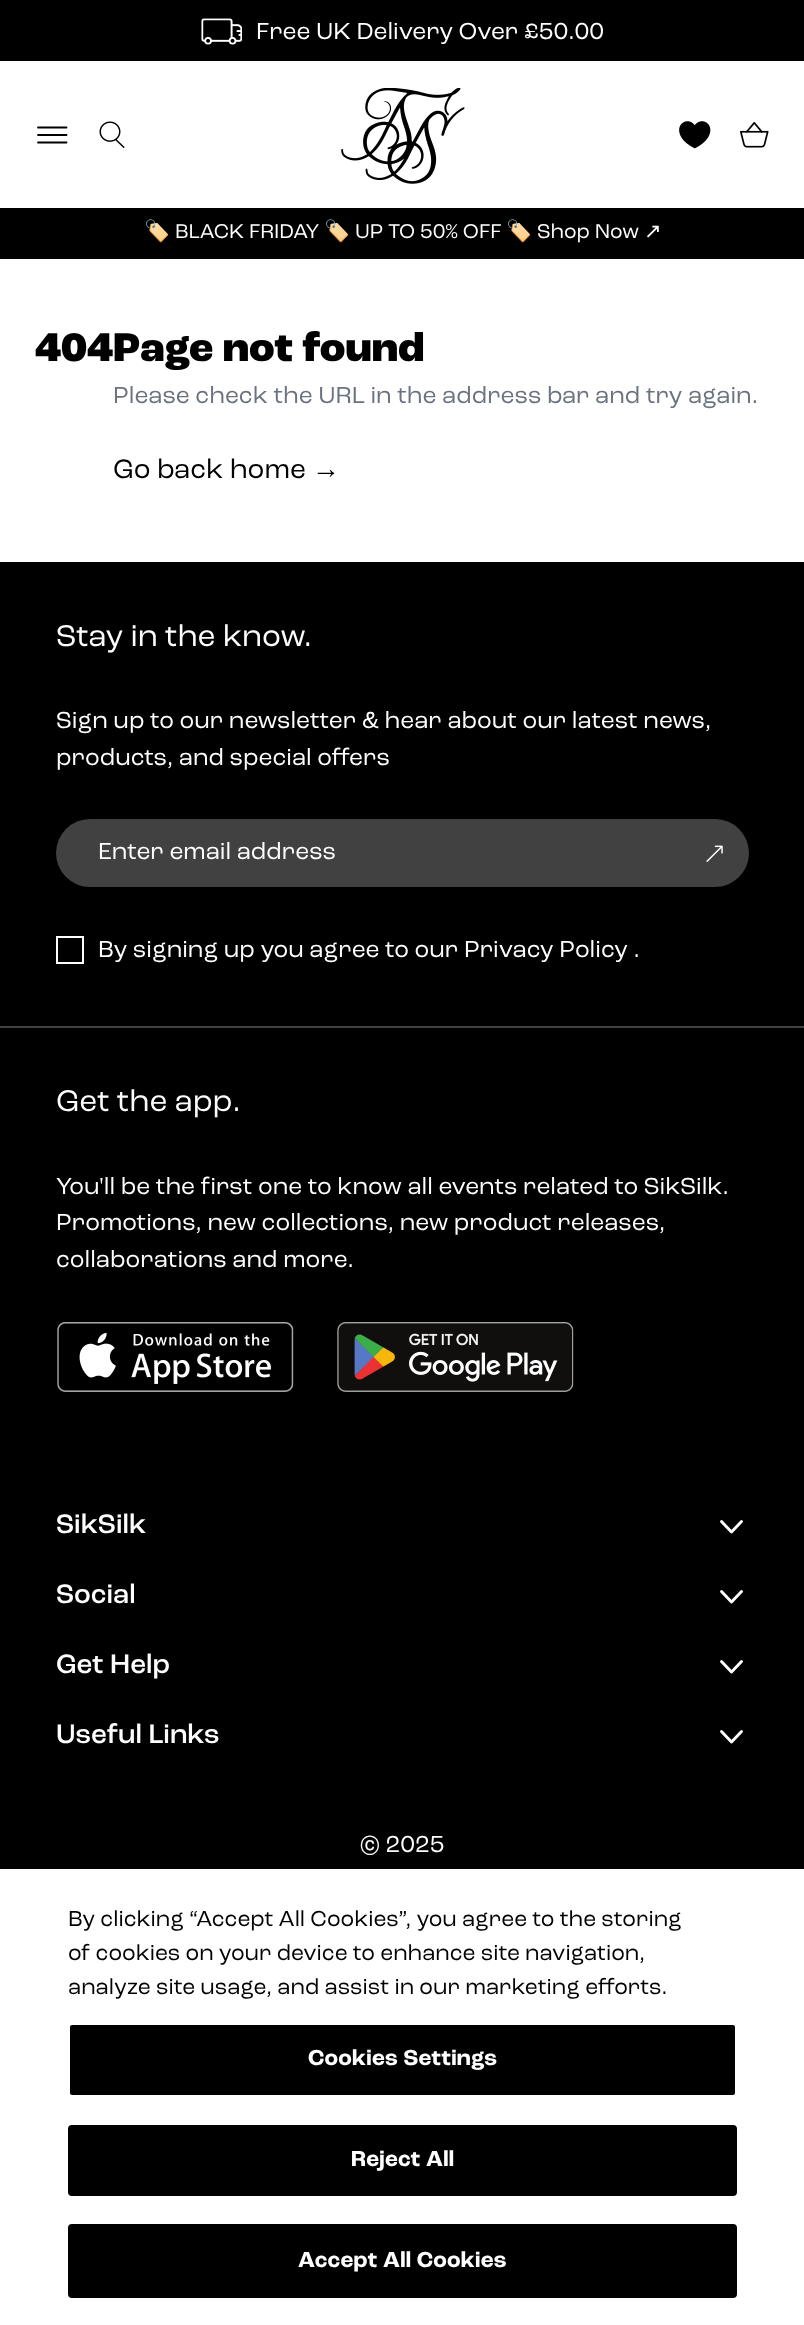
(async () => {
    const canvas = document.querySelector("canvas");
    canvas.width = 804;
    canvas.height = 2325;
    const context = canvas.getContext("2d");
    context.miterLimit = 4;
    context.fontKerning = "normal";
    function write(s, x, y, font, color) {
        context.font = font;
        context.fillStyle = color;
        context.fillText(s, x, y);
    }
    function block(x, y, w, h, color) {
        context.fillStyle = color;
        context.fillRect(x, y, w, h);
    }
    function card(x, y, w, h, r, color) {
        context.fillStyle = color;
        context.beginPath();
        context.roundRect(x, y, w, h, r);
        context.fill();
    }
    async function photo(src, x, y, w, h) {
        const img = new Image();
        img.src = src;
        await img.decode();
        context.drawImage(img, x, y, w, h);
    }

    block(0, 0, 804, 2325, "rgb(255, 255, 255)");
    block(0, 0, 804, 61, "rgb(0, 0, 0)");
    await photo("media/1.png", 201, 18, 41, 27);
    write("Free UK Delivery Over £50.00", 256, 39, "24.5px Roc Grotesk", "rgb(255, 255, 255)");
    context.beginPath();
    context.moveTo(66.5, 127.5);
    context.lineTo(38, 127.5);
    context.moveTo(66.5, 135);
    context.lineTo(38, 135);
    context.moveTo(66.5, 142.5);
    context.lineTo(38, 142.5);
    context.strokeStyle = "rgb(0, 0, 0)";
    context.lineWidth = 1.8;
    context.lineCap = "round";
    context.lineJoin = "round";
    context.stroke();
    await photo("media/2.png", 99, 121, 26, 27);
    await photo("media/3.png", 341, 88, 124, 96);
    await photo("media/4.png", 679, 121, 32, 28);
    await photo("media/5.png", 740, 122, 29, 26);
    block(0, 208, 804, 51, "rgb(0, 0, 0)");
    write("🏷️", 144, 238, "21px Noto Color Emoji", "rgb(255, 255, 255)");
    write("BLACK FRIDAY", 175, 238, "21px Roc Grotesk", "rgb(255, 255, 255)");
    write("🏷️", 324, 238, "21px Noto Color Emoji", "rgb(255, 255, 255)");
    write("UP TO 50% OFF", 355, 238, "21px Roc Grotesk", "rgb(255, 255, 255)");
    write("🏷️", 506, 238, "21px Noto Color Emoji", "rgb(255, 255, 255)");
    write("Shop Now", 537, 238, "21px Roc Grotesk", "rgb(255, 255, 255)");
    write("↗", 644, 238, "21px DejaVu Sans", "rgb(255, 255, 255)");
    write("404Page not found", 35, 361, "800 42px Roc Grotesk", "rgb(0, 0, 0)");
    write("Please check the URL in the address bar and try again.", 113, 403, "24.5px Roc Grotesk", "rgb(107, 114, 128)");
    write("Go back home", 113, 478, "28px Roc Grotesk", "rgb(0, 0, 0)");
    write("→", 312, 478, "28px Liberation Sans", "rgb(0, 0, 0)");
    block(0, 562, 804, 464, "rgb(0, 0, 0)");
    block(0, 1026, 804, 2, "rgb(63, 63, 63)");
    write("Stay in the know.", 56, 646, "31.5px Roc Grotesk", "rgb(255, 255, 255)");
    write("Sign up to our newsletter & hear about our latest news,", 56, 728, "24.5px Roc Grotesk", "rgb(255, 255, 255)");
    write("products, and special offers", 56, 765, "24.5px Roc Grotesk", "rgb(255, 255, 255)");
    card(56, 819, 693, 68, 34, "rgb(65, 65, 65)");
    write("Enter email address", 98, 859, "24.5px Roc Grotesk", "rgb(255, 255, 255)");
    await photo("media/6.png", 706, 845, 17, 18);
    context.strokeStyle = "rgb(255, 255, 255)";
    context.lineWidth = 2;
    context.lineJoin = "miter";
    context.strokeRect(57, 937, 26, 26);
    write("By signing up you agree to our Privacy Policy .", 98, 957, "24.5px Roc Grotesk", "rgb(255, 255, 255)");
    block(0, 1028, 804, 841, "rgb(0, 0, 0)");
    write("Get the app.", 56, 1111, "31.5px Roc Grotesk", "rgb(255, 255, 255)");
    write("You'll be the first one to know all events related to SikSilk.", 56, 1194, "24.5px Roc Grotesk", "rgb(255, 255, 255)");
    write("Promotions, new collections, new product releases,", 56, 1230, "24.5px Roc Grotesk", "rgb(255, 255, 255)");
    write("collaborations and more.", 56, 1267, "24.5px Roc Grotesk", "rgb(255, 255, 255)");
    await photo("media/7.png", 57, 1322, 237, 70);
    await photo("media/8.png", 337, 1322, 237, 70);
    write("SikSilk", 56, 1533, "500 28px Roc Grotesk", "rgb(255, 255, 255)");
    context.beginPath();
    context.moveTo(741.5, 1521.5);
    context.lineTo(731.5, 1532);
    context.lineTo(721.5, 1521.5);
    context.lineWidth = 2.9;
    context.lineJoin = "round";
    context.stroke();
    write("Social", 56, 1603, "500 28px Roc Grotesk", "rgb(255, 255, 255)");
    context.beginPath();
    context.moveTo(741.5, 1591.5);
    context.lineTo(731.5, 1602);
    context.lineTo(721.5, 1591.5);
    context.stroke();
    write("Get Help", 56, 1673, "500 28px Roc Grotesk", "rgb(255, 255, 255)");
    context.beginPath();
    context.moveTo(741.5, 1661.5);
    context.lineTo(731.5, 1672);
    context.lineTo(721.5, 1661.5);
    context.stroke();
    write("Useful Links", 56, 1743, "500 28px Roc Grotesk", "rgb(255, 255, 255)");
    context.beginPath();
    context.moveTo(741.5, 1731.5);
    context.lineTo(731.5, 1742);
    context.lineTo(721.5, 1731.5);
    context.stroke();
    write("© 2025", 360, 1852, "24.5px Roc Grotesk", "rgb(255, 255, 255)");
    context.fillStyle = "rgba(0, 0, 0, 0.2)";
    context.filter = "blur(16px)";
    context.beginPath();
    context.rect(0, 1869, 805, 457);
    context.fill();
    context.filter = "none";
    block(0, 1869, 804, 456, "rgb(255, 255, 255)");
    write("By clicking “Accept All Cookies”, you agree to the storing", 68, 1926, "22.75px Roc Grotesk", "rgb(0, 0, 0)");
    write("of cookies on your device to enhance site navigation,", 68, 1960, "22.75px Roc Grotesk", "rgb(0, 0, 0)");
    write("analyze site usage, and assist in our marketing efforts.", 68, 1994, "22.75px Roc Grotesk", "rgb(0, 0, 0)");
    context.beginPath();
    context.roundRect(69, 2024, 667, 72, 3);
    context.fill();
    context.lineWidth = 2;
    context.lineJoin = "miter";
    context.stroke();
    context.letterSpacing = "0.25px";
    write("Cookies Settings", 308, 2065, "bold 22.75px Roc Grotesk", "rgb(255, 255, 255)");
    context.fillStyle = "rgb(0, 0, 0)";
    context.beginPath();
    context.roundRect(69, 2126, 667, 69, 3);
    context.fill();
    context.strokeStyle = "rgb(0, 0, 0)";
    context.stroke();
    write("Reject All", 351, 2166, "bold 22.75px Roc Grotesk", "rgb(255, 255, 255)");
    context.fillStyle = "rgb(0, 0, 0)";
    context.beginPath();
    context.roundRect(69, 2225, 667, 72, 3);
    context.fill();
    context.stroke();
    write("Accept All Cookies", 298, 2267, "bold 22.75px Roc Grotesk", "rgb(255, 255, 255)");
})();
